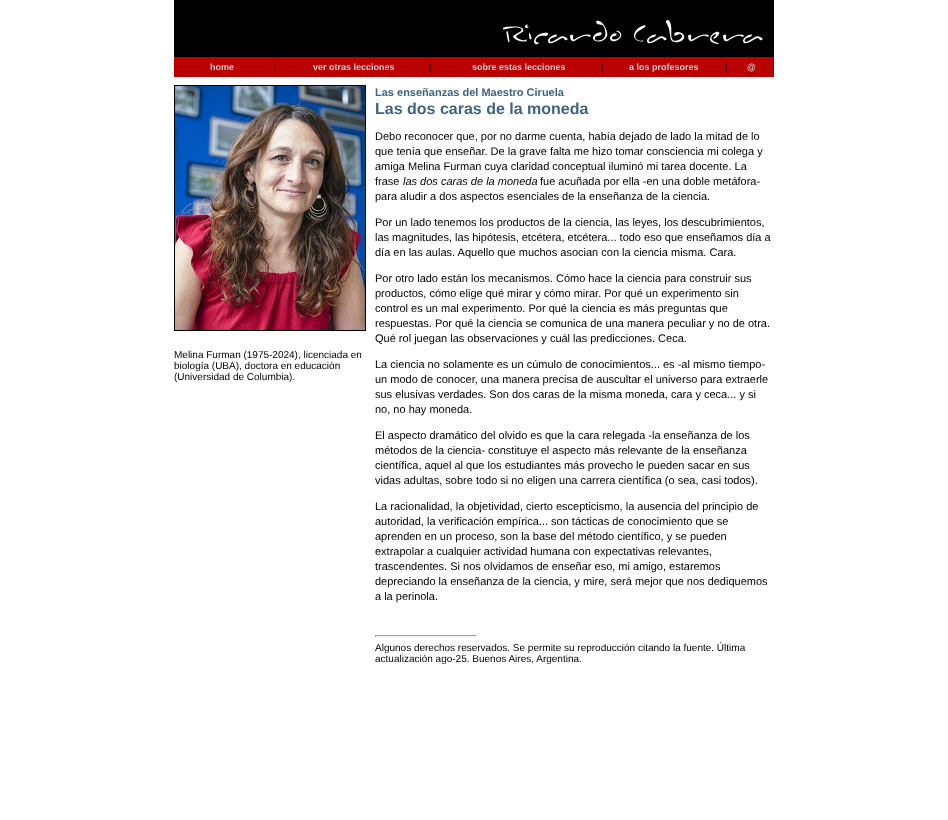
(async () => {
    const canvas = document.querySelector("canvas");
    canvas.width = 948;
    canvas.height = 820;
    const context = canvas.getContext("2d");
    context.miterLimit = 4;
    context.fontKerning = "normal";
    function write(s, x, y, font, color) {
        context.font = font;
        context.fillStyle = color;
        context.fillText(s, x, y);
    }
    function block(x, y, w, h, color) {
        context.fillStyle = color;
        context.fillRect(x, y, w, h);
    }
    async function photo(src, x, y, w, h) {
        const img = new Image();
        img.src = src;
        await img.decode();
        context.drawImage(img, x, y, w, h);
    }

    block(0, 0, 948, 820, "rgb(255, 255, 255)");
    block(174, 0, 600, 57, "rgb(0, 0, 0)");
    await photo("media/1.png", 503, 20, 260, 25);
    block(174, 57, 600, 20, "rgb(187, 0, 0)");
    write("home", 210, 70, "bold 9px Liberation Sans", "rgb(204, 204, 204)");
    write("|", 274, 70, "9px Liberation Sans", "rgb(0, 0, 0)");
    write("ver otras lecciones", 313, 70, "bold 9px Liberation Sans", "rgb(204, 204, 204)");
    write("|", 429, 70, "9px Liberation Sans", "rgb(0, 0, 0)");
    write("sobre estas lecciones", 472, 70, "bold 9px Liberation Sans", "rgb(204, 204, 204)");
    write("|", 601, 70, "9px Liberation Sans", "rgb(0, 0, 0)");
    write("a los profesores", 629, 70, "bold 9px Liberation Sans", "rgb(204, 204, 204)");
    write("|", 725, 70, "9px Liberation Sans", "rgb(0, 0, 0)");
    write("@", 747, 70, "bold 9px Liberation Sans", "rgb(204, 204, 204)");
    write("Melina Furman (1975-2024), licenciada en", 174, 358, "10px Liberation Sans", "rgb(0, 0, 0)");
    write("biología (UBA), doctora en educación", 174, 369, "10px Liberation Sans", "rgb(0, 0, 0)");
    write("(Universidad de Columbia).", 174, 380, "10px Liberation Sans", "rgb(0, 0, 0)");
    context.strokeStyle = "rgb(0, 0, 0)";
    context.strokeRect(174.5, 85.5, 191, 245);
    await photo("media/2.png", 175, 86, 190, 244);
    write("Las enseñanzas del Maestro Ciruela", 375, 96, "bold 11px Liberation Sans", "rgb(63, 99, 134)");
    write("Las dos caras de la moneda", 375, 114, "bold 16px Liberation Sans", "rgb(63, 99, 134)");
    write("Debo reconocer que, por no darme cuenta, había dejado de lado la mitad de lo", 375, 140, "11px Liberation Sans", "rgb(0, 0, 0)");
    write("que tenía que enseñar. De la grave falta me hizo tomar consciencia mi colega y", 375, 155, "11px Liberation Sans", "rgb(0, 0, 0)");
    write("amiga Melina Furman cuya claridad conceptual iluminó mi tarea docente. La", 375, 170, "11px Liberation Sans", "rgb(0, 0, 0)");
    write("frase", 375, 185, "11px Liberation Sans", "rgb(0, 0, 0)");
    write("las dos caras de la moneda", 403, 185, "italic 11px Liberation Sans", "rgb(0, 0, 0)");
    write("fue acuñada por ella -en una doble metáfora-", 540, 185, "11px Liberation Sans", "rgb(0, 0, 0)");
    write("para aludir a dos aspectos esenciales de la enseñanza de la ciencia.", 375, 200, "11px Liberation Sans", "rgb(0, 0, 0)");
    write("Por un lado tenemos los productos de la ciencia, las leyes, los descubrimientos,", 375, 226, "11px Liberation Sans", "rgb(0, 0, 0)");
    write("las magnitudes, las hipótesis, etcétera, etcétera... todo eso que enseñamos día a", 375, 241, "11px Liberation Sans", "rgb(0, 0, 0)");
    write("día en las aulas. Aquello que muchos asocian con la ciencia misma. Cara.", 375, 256, "11px Liberation Sans", "rgb(0, 0, 0)");
    write("Por otro lado están los mecanismos. Cómo hace la ciencia para construir sus", 375, 282, "11px Liberation Sans", "rgb(0, 0, 0)");
    write("productos, cómo elige qué mirar y cómo mirar. Por qué un experimento sin", 375, 297, "11px Liberation Sans", "rgb(0, 0, 0)");
    write("control es un mal experimento. Por qué la ciencia es más preguntas que", 375, 312, "11px Liberation Sans", "rgb(0, 0, 0)");
    write("respuestas. Por qué la ciencia se comunica de una manera peculiar y no de otra.", 375, 327, "11px Liberation Sans", "rgb(0, 0, 0)");
    write("Qué rol juegan las observaciones y cuál las predicciones. Ceca.", 375, 342, "11px Liberation Sans", "rgb(0, 0, 0)");
    write("La ciencia no solamente es un cúmulo de conocimientos... es -al mismo tiempo-", 375, 368, "11px Liberation Sans", "rgb(0, 0, 0)");
    write("un modo de conocer, una manera precisa de auscultar el universo para extraerle", 375, 383, "11px Liberation Sans", "rgb(0, 0, 0)");
    write("sus elusivas verdades. Son dos caras de la misma moneda, cara y ceca... y si", 375, 398, "11px Liberation Sans", "rgb(0, 0, 0)");
    write("no, no hay moneda.", 375, 413, "11px Liberation Sans", "rgb(0, 0, 0)");
    write("El aspecto dramático del olvido es que la cara relegada -la enseñanza de los", 375, 439, "11px Liberation Sans", "rgb(0, 0, 0)");
    write("métodos de la ciencia- constituye el aspecto más relevante de la enseñanza", 375, 454, "11px Liberation Sans", "rgb(0, 0, 0)");
    write("científica, aquel al que los estudiantes más provecho le pueden sacar en sus", 375, 469, "11px Liberation Sans", "rgb(0, 0, 0)");
    write("vidas adultas, sobre todo si no eligen una carrera científica (o sea, casi todos).", 375, 484, "11px Liberation Sans", "rgb(0, 0, 0)");
    write("La racionalidad, la objetividad, cierto escepticismo, la ausencia del principio de", 375, 510, "11px Liberation Sans", "rgb(0, 0, 0)");
    write("autoridad, la verificación empírica... son tácticas de conocimiento que se", 375, 525, "11px Liberation Sans", "rgb(0, 0, 0)");
    write("aprenden en un proceso, son la base del método científico, y se pueden", 375, 540, "11px Liberation Sans", "rgb(0, 0, 0)");
    write("extrapolar a cualquier actividad humana con expectativas relevantes,", 375, 555, "11px Liberation Sans", "rgb(0, 0, 0)");
    write("trascendentes. Si nos olvidamos de enseñar eso, mi amigo, estaremos", 375, 570, "11px Liberation Sans", "rgb(0, 0, 0)");
    write("depreciando la enseñanza de la ciencia, y mire, será mejor que nos dediquemos", 375, 585, "11px Liberation Sans", "rgb(0, 0, 0)");
    write("a la perinola.", 375, 600, "11px Liberation Sans", "rgb(0, 0, 0)");
    block(375, 635, 102, 1, "rgb(159, 159, 159)");
    block(476, 635, 1, 2, "rgb(238, 238, 238)");
    block(375, 636, 102, 1, "rgb(238, 238, 238)");
    block(375, 635, 1, 2, "rgb(159, 159, 159)");
    write("Algunos derechos reservados. Se permite su reproducción citando la fuente. Última", 375, 651, "10px Liberation Sans", "rgb(0, 0, 0)");
    write("actualización ago-25. Buenos Aires, Argentina.", 375, 662, "10px Liberation Sans", "rgb(0, 0, 0)");
})();
